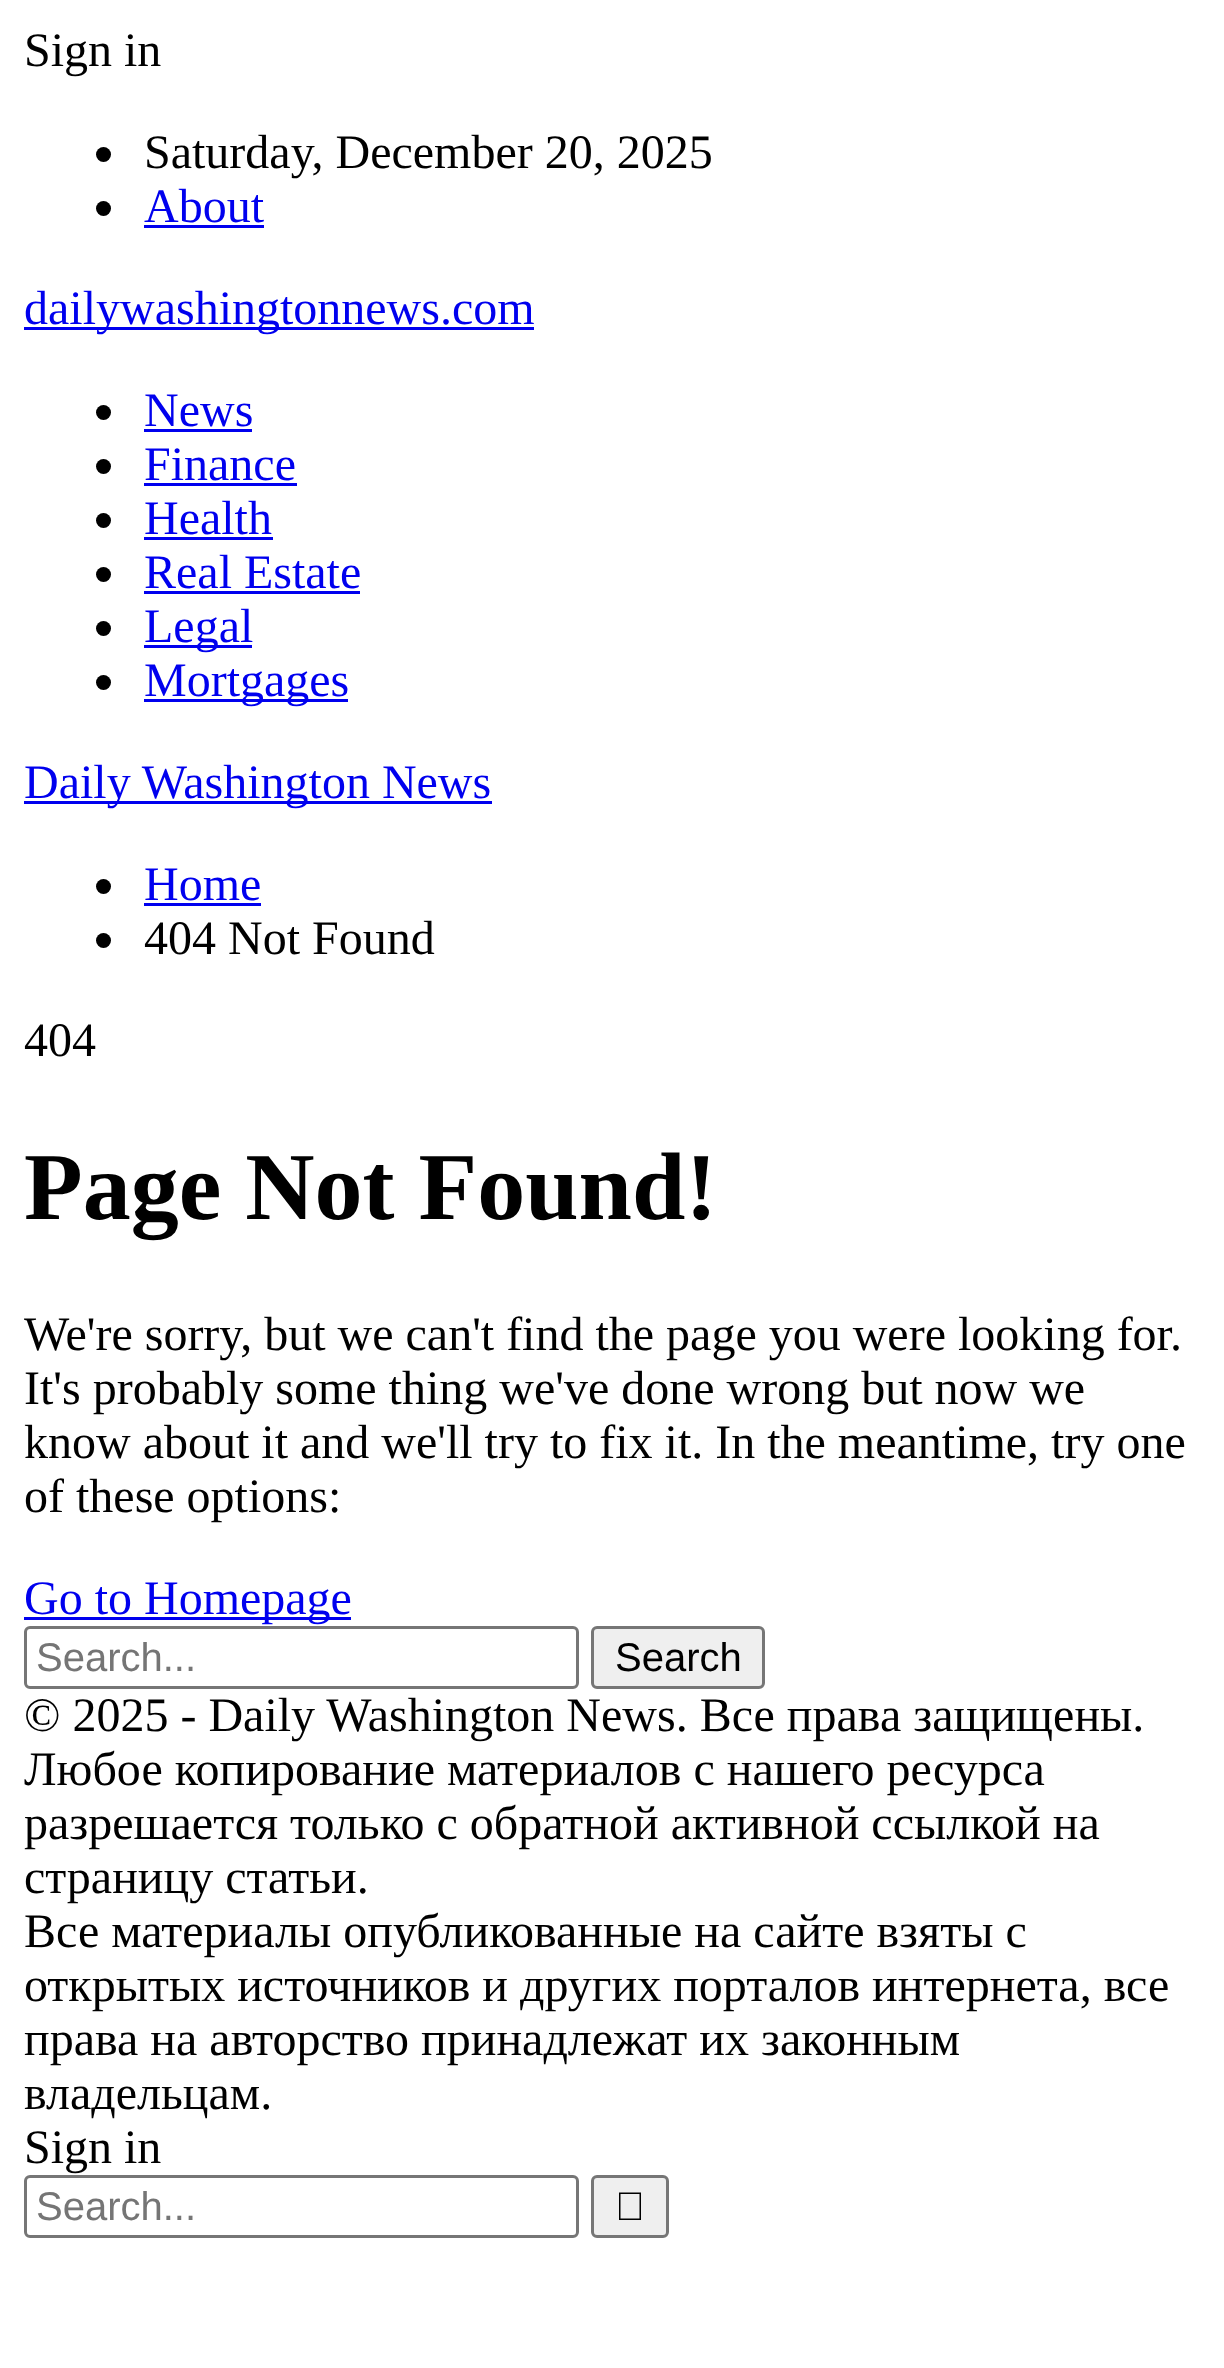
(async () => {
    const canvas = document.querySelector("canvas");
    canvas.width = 1224;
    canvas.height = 2368;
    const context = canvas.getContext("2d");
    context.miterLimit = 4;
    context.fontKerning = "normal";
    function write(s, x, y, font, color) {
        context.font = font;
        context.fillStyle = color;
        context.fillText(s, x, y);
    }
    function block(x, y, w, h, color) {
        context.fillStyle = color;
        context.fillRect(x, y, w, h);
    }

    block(0, 0, 1224, 2368, "rgb(255, 255, 255)");
    write("Sign in", 24, 66, "48px Liberation Serif", "rgb(0, 0, 0)");
    context.beginPath();
    context.arc(103.5, 154.5, 7.5, 0, Math.PI * 2);
    context.fill();
    write("Saturday, December 20, 2025", 144, 168, "48px Liberation Serif", "rgb(0, 0, 0)");
    context.beginPath();
    context.arc(103.5, 208.5, 7.5, 0, Math.PI * 2);
    context.fill();
    write("About", 144, 222, "48px Liberation Serif", "rgb(0, 0, 238)");
    block(144, 225, 120, 3, "rgb(0, 0, 238)");
    block(24, 327, 510, 3, "rgb(0, 0, 238)");
    write("dailywashingtonnews.com", 24, 324, "48px Liberation Serif", "rgb(0, 0, 238)");
    context.fillStyle = "rgb(0, 0, 0)";
    context.beginPath();
    context.arc(103.5, 412.5, 7.5, 0, Math.PI * 2);
    context.fill();
    write("News", 144, 426, "48px Liberation Serif", "rgb(0, 0, 238)");
    block(144, 429, 108, 3, "rgb(0, 0, 238)");
    context.fillStyle = "rgb(0, 0, 0)";
    context.beginPath();
    context.arc(103.5, 466.5, 7.5, 0, Math.PI * 2);
    context.fill();
    write("Finance", 144, 480, "48px Liberation Serif", "rgb(0, 0, 238)");
    block(144, 483, 153, 3, "rgb(0, 0, 238)");
    context.fillStyle = "rgb(0, 0, 0)";
    context.beginPath();
    context.arc(103.5, 520.5, 7.5, 0, Math.PI * 2);
    context.fill();
    write("Health", 144, 534, "48px Liberation Serif", "rgb(0, 0, 238)");
    block(144, 537, 129, 3, "rgb(0, 0, 238)");
    context.fillStyle = "rgb(0, 0, 0)";
    context.beginPath();
    context.arc(103.5, 574.5, 7.5, 0, Math.PI * 2);
    context.fill();
    write("Real Estate", 144, 588, "48px Liberation Serif", "rgb(0, 0, 238)");
    block(144, 591, 216, 3, "rgb(0, 0, 238)");
    context.fillStyle = "rgb(0, 0, 0)";
    context.beginPath();
    context.arc(103.5, 628.5, 7.5, 0, Math.PI * 2);
    context.fill();
    block(144, 645, 108, 3, "rgb(0, 0, 238)");
    write("Legal", 144, 642, "48px Liberation Serif", "rgb(0, 0, 238)");
    context.fillStyle = "rgb(0, 0, 0)";
    context.beginPath();
    context.arc(103.5, 682.5, 7.5, 0, Math.PI * 2);
    context.fill();
    block(144, 699, 204, 3, "rgb(0, 0, 238)");
    write("Mortgages", 144, 696, "48px Liberation Serif", "rgb(0, 0, 238)");
    block(24, 801, 468, 3, "rgb(0, 0, 238)");
    write("Daily Washington News", 24, 798, "48px Liberation Serif", "rgb(0, 0, 238)");
    context.fillStyle = "rgb(0, 0, 0)";
    context.beginPath();
    context.arc(103.5, 886.5, 7.5, 0, Math.PI * 2);
    context.fill();
    write("Home", 144, 900, "48px Liberation Serif", "rgb(0, 0, 238)");
    block(144, 903, 117, 3, "rgb(0, 0, 238)");
    context.fillStyle = "rgb(0, 0, 0)";
    context.beginPath();
    context.arc(103.5, 940.5, 7.5, 0, Math.PI * 2);
    context.fill();
    write("404 Not Found", 144, 954, "48px Liberation Serif", "rgb(0, 0, 0)");
    write("404", 24, 1056, "48px Liberation Serif", "rgb(0, 0, 0)");
    write("Page Not Found!", 24, 1219, "bold 96px Liberation Serif", "rgb(0, 0, 0)");
    write("We're sorry, but we can't find the page you were looking for.", 24, 1350, "48px Liberation Serif", "rgb(0, 0, 0)");
    write("It's probably some thing we've done wrong but now we", 24, 1404, "48px Liberation Serif", "rgb(0, 0, 0)");
    write("know about it and we'll try to fix it. In the meantime, try one", 24, 1458, "48px Liberation Serif", "rgb(0, 0, 0)");
    write("of these options:", 24, 1512, "48px Liberation Serif", "rgb(0, 0, 0)");
    block(24, 1617, 327, 3, "rgb(0, 0, 238)");
    write("Go to Homepage", 24, 1614, "48px Liberation Serif", "rgb(0, 0, 238)");
    context.beginPath();
    context.roundRect(25.5, 1627.5, 552, 60, 4.5);
    context.strokeStyle = "rgb(118, 118, 118)";
    context.lineWidth = 3;
    context.stroke();
    write("Search...", 36, 1671, "40px Liberation Sans", "rgb(117, 117, 117)");
    context.fillStyle = "rgb(239, 239, 239)";
    context.beginPath();
    context.roundRect(592.5, 1627.5, 171, 60, 4.5);
    context.fill();
    context.stroke();
    write("Search", 615, 1671, "40px Liberation Sans", "rgb(0, 0, 0)");
    write("© 2025 - Daily Washington News. Все права защищены.", 24, 1731, "48px Liberation Serif", "rgb(0, 0, 0)");
    write("Любое копирование материалов с нашего ресурса", 24, 1785, "48px Liberation Serif", "rgb(0, 0, 0)");
    write("разрешается только с обратной активной ссылкой на", 24, 1839, "48px Liberation Serif", "rgb(0, 0, 0)");
    write("страницу статьи.", 24, 1893, "48px Liberation Serif", "rgb(0, 0, 0)");
    write("Все материалы опубликованные на сайте взяты с", 24, 1947, "48px Liberation Serif", "rgb(0, 0, 0)");
    write("открытых источников и других порталов интернета, все", 24, 2001, "48px Liberation Serif", "rgb(0, 0, 0)");
    write("права на авторство принадлежат их законным", 24, 2055, "48px Liberation Serif", "rgb(0, 0, 0)");
    write("владельцам.", 24, 2109, "48px Liberation Serif", "rgb(0, 0, 0)");
    write("Sign in", 24, 2163, "48px Liberation Serif", "rgb(0, 0, 0)");
    context.beginPath();
    context.roundRect(25.5, 2176.5, 552, 60, 4.5);
    context.stroke();
    write("Search...", 36, 2220, "40px Liberation Sans", "rgb(117, 117, 117)");
    context.fillStyle = "rgb(239, 239, 239)";
    context.beginPath();
    context.roundRect(592.5, 2176.5, 75, 60, 4.5);
    context.fill();
    context.stroke();
    context.fillStyle = "rgb(0, 0, 0)";
    context.beginPath();
    context.moveTo(619, 2192.5);
    context.lineTo(641, 2192.5);
    context.lineTo(641, 2220);
    context.lineTo(619, 2220);
    context.closePath();
    context.moveTo(620.5, 2194);
    context.lineTo(620.5, 2218.5);
    context.lineTo(639.5, 2218.5);
    context.lineTo(639.5, 2194);
    context.closePath();
    context.fill();
})();
